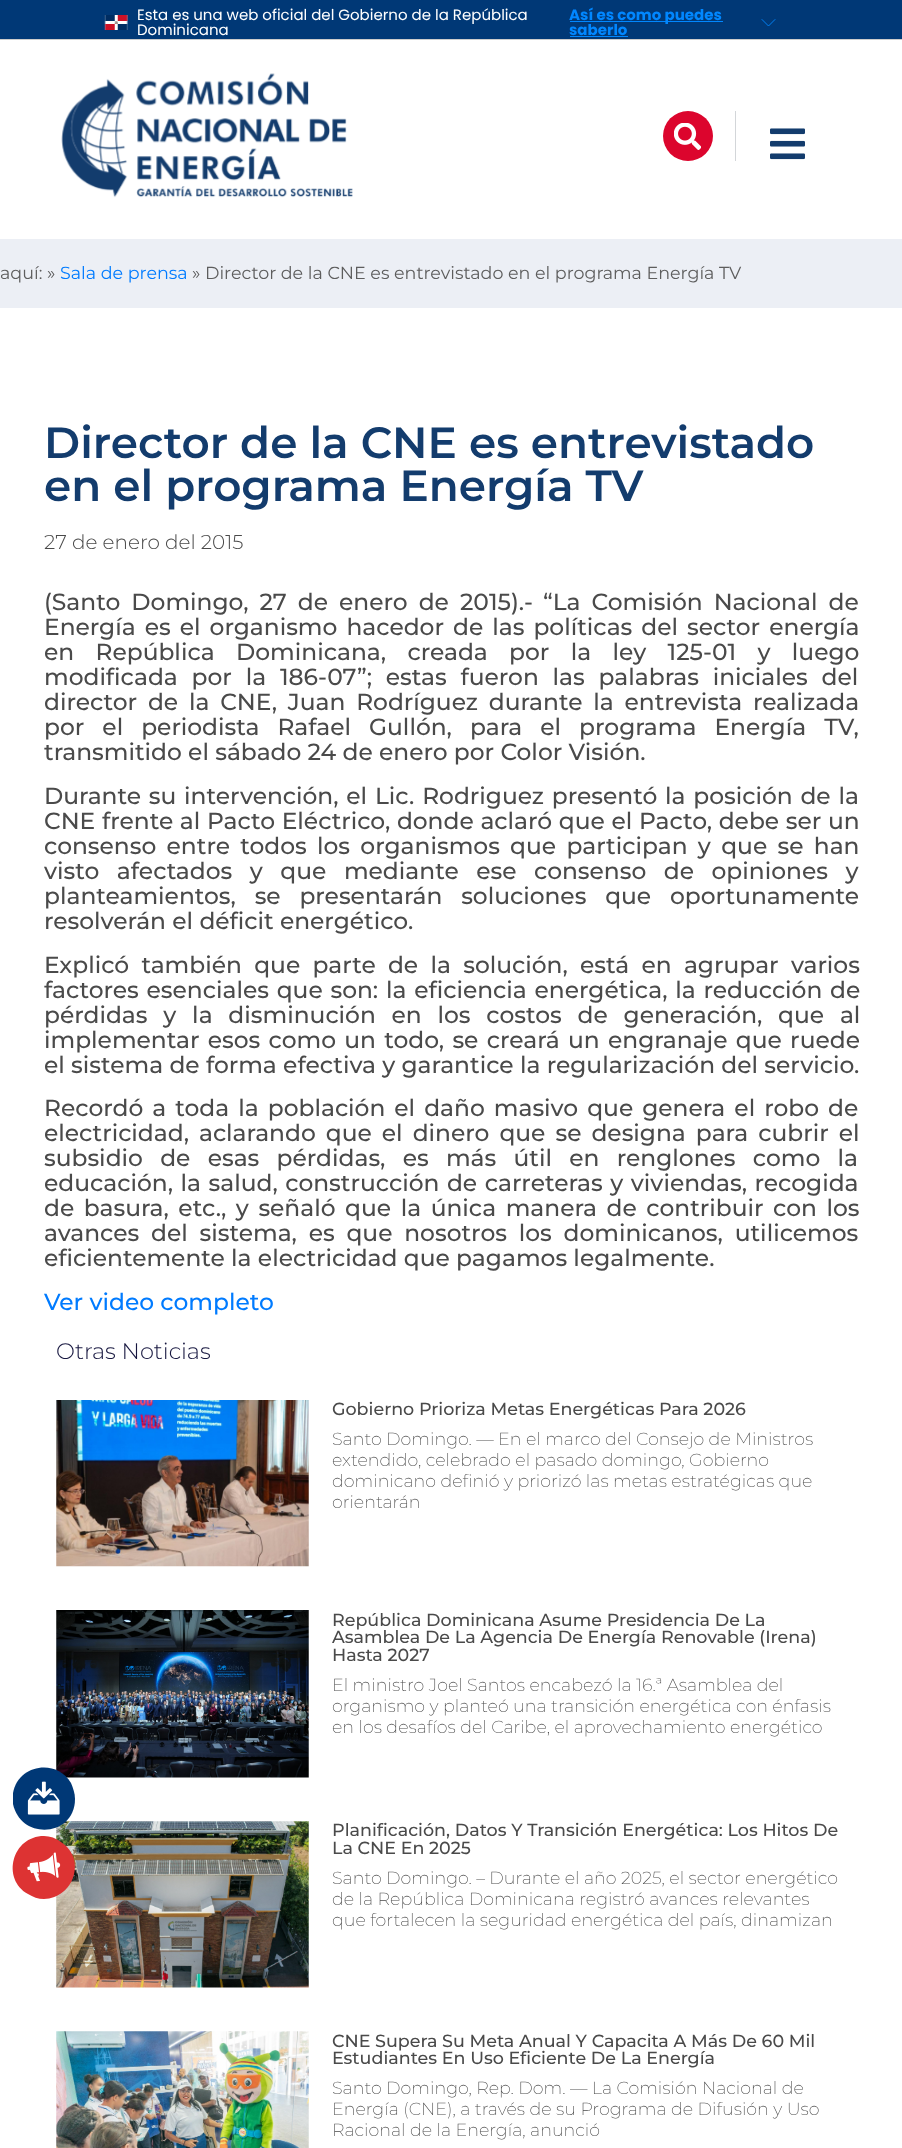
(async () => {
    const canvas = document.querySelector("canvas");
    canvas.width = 902;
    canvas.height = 2148;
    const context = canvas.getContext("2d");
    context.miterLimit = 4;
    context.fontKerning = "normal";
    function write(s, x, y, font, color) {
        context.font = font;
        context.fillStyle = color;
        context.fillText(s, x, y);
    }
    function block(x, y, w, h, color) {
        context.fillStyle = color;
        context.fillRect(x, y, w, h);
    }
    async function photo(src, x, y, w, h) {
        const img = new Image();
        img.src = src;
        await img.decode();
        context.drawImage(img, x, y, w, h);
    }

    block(0, 0, 902, 2148, "rgb(255, 255, 255)");
    block(0, 0, 902, 39, "rgb(0, 56, 118)");
    block(0, 39, 902, 1, "rgb(204, 204, 204)");
    await photo("media/1.png", 104, 15, 24, 15);
    write("Esta es una web oficial del Gobierno de la República", 137, 20, "15px Poppins", "rgb(255, 255, 255)");
    write("Dominicana", 137, 35, "15px Poppins", "rgb(255, 255, 255)");
    block(570, 21, 153, 1, "rgb(0, 135, 255)");
    write("Así es como puedes", 569, 20, "bold 15px Poppins", "rgb(0, 135, 255)");
    write("saberlo", 569, 35, "bold 15px Poppins", "rgb(0, 135, 255)");
    block(570, 36, 58, 1, "rgb(0, 135, 255)");
    context.beginPath();
    context.moveTo(775, 19.5);
    context.lineTo(768.5, 26);
    context.lineTo(762, 19.5);
    context.strokeStyle = "rgb(0, 135, 255)";
    context.lineWidth = 0.9;
    context.lineCap = "round";
    context.lineJoin = "round";
    context.stroke();
    await photo("media/2.png", 61, 73, 292, 125);
    context.fillStyle = "rgb(220, 5, 45)";
    context.beginPath();
    context.arc(688, 136, 25, 0, Math.PI * 2);
    context.fill();
    await photo("media/3.png", 674, 123, 27, 27);
    block(735, 111, 1, 50, "rgb(211, 214, 217)");
    await photo("media/4.png", 770, 128, 35, 32);
    block(0, 239, 902, 69, "rgb(236, 239, 245)");
    write("aquí: »", 0, 279, "17.5px Montserrat", "rgb(93, 93, 93)");
    write("Sala de prensa", 60, 279, "17.5px Montserrat", "rgb(0, 123, 255)");
    write("» Director de la CNE es entrevistado en el programa Energía TV", 192, 279, "17.5px Montserrat", "rgb(93, 93, 93)");
    write("Director de la CNE es entrevistado", 44, 458, "600 43.75px Montserrat", "rgb(19, 60, 109)");
    write("en el programa Energía TV", 44, 501, "600 43.75px Montserrat", "rgb(19, 60, 109)");
    write("27 de enero del 2015", 44, 549, "300 20px Montserrat", "rgb(74, 74, 74)");
    context.wordSpacing = "4.75px";
    write("(Santo Domingo, 27 de enero de 2015).-", 44, 610, "500 23.35px Montserrat", "rgb(74, 74, 74)");
    write("“La Comisión Nacional de", 543, 610, "500 23.35px Montserrat", "rgb(74, 74, 74)");
    context.wordSpacing = "2.75px";
    write("Energía es el organismo hacedor de las políticas del sector energía", 44, 635, "500 23.35px Montserrat", "rgb(74, 74, 74)");
    context.wordSpacing = "15px";
    write("en República Dominicana, creada por la ley 125-01 y luego", 44, 660, "500 23.35px Montserrat", "rgb(74, 74, 74)");
    context.wordSpacing = "7.5px";
    write("modificada por la 186-07”; estas fueron las palabras iniciales del", 44, 685, "500 23.35px Montserrat", "rgb(74, 74, 74)");
    context.wordSpacing = "4.5px";
    write("director de la CNE, Juan Rodríguez durante la entrevista realizada", 44, 710, "500 23.35px Montserrat", "rgb(74, 74, 74)");
    context.wordSpacing = "11.75px";
    write("por el periodista Rafael Gullón, para el programa Energía TV,", 44, 735, "500 23.35px Montserrat", "rgb(74, 74, 74)");
    context.wordSpacing = "0px";
    write("transmitido el sábado 24 de enero por Color Visión.", 44, 760, "500 23.35px Montserrat", "rgb(74, 74, 74)");
    context.wordSpacing = "1.5px";
    write("Durante su intervención, el Lic. Rodriguez presentó la posición de la", 44, 804, "500 23.35px Montserrat", "rgb(74, 74, 74)");
    context.wordSpacing = "0.4px";
    write("CNE frente al Pacto Eléctrico, donde aclaró que el Pacto, debe ser un", 44, 829, "500 23.35px Montserrat", "rgb(74, 74, 74)");
    context.wordSpacing = "4px";
    write("consenso entre todos los organismos que participan y que se han", 44, 854, "500 23.35px Montserrat", "rgb(74, 74, 74)");
    context.wordSpacing = "11.25px";
    write("visto afectados y que mediante ese consenso de opiniones y", 44, 879, "500 23.35px Montserrat", "rgb(74, 74, 74)");
    context.wordSpacing = "12.5px";
    write("planteamientos, se presentarán soluciones que oportunamente", 44, 904, "500 23.35px Montserrat", "rgb(74, 74, 74)");
    context.wordSpacing = "0px";
    write("resolverán el déficit energético.", 44, 929, "500 23.35px Montserrat", "rgb(74, 74, 74)");
    context.wordSpacing = "6px";
    write("Explicó también que parte de la solución, está en agrupar varios", 44, 973, "500 23.35px Montserrat", "rgb(74, 74, 74)");
    context.wordSpacing = "1.5px";
    write("factores esenciales que son: la eficiencia energética, la reducción de", 44, 998, "500 23.35px Montserrat", "rgb(74, 74, 74)");
    context.wordSpacing = "9.5px";
    write("pérdidas y la disminución en los costos de generación, que al", 44, 1023, "500 23.35px Montserrat", "rgb(74, 74, 74)");
    context.wordSpacing = "2px";
    write("implementar esos como un todo, se creará un engranaje que ruede", 44, 1048, "500 23.35px Montserrat", "rgb(74, 74, 74)");
    context.wordSpacing = "0px";
    write("el sistema de forma efectiva y garantice la regularización del servicio.", 44, 1073, "500 23.35px Montserrat", "rgb(74, 74, 74)");
    context.wordSpacing = "2.75px";
    write("Recordó a toda la población el daño masivo que genera el robo de", 44, 1116, "500 23.35px Montserrat", "rgb(74, 74, 74)");
    context.wordSpacing = "3.75px";
    write("electricidad, aclarando que el dinero que se designa para cubrir el", 44, 1141, "500 23.35px Montserrat", "rgb(74, 74, 74)");
    context.wordSpacing = "11px";
    write("subsidio de esas pérdidas, es más útil en renglones como la", 44, 1166, "500 23.35px Montserrat", "rgb(74, 74, 74)");
    context.wordSpacing = "1.25px";
    write("educación, la salud, construcción de carreteras y viviendas, recogida", 44, 1191, "500 23.35px Montserrat", "rgb(74, 74, 74)");
    context.wordSpacing = "3.25px";
    write("de basura, etc., y señaló que la única manera de contribuir con los", 44, 1216, "500 23.35px Montserrat", "rgb(74, 74, 74)");
    context.wordSpacing = "5.5px";
    write("avances del sistema, es que nosotros los dominicanos, utilicemos", 44, 1241, "500 23.35px Montserrat", "rgb(74, 74, 74)");
    context.wordSpacing = "0px";
    write("eficientemente la electricidad que pagamos legalmente.", 44, 1266, "500 23.35px Montserrat", "rgb(74, 74, 74)");
    write("Ver video completo", 44, 1310, "500 23.35px Montserrat", "rgb(0, 123, 255)");
    write("Otras Noticias", 56, 1359, "300 22.5px Montserrat", "rgb(22, 22, 63)");
    await photo("media/5.png", 56, 1400, 253, 167);
    write("Gobierno Prioriza Metas Energéticas Para 2026", 332, 1415, "500 17.5px Montserrat", "rgb(74, 74, 74)");
    write("Santo Domingo. — En el marco del Consejo de Ministros", 332, 1445, "200 17.5px Montserrat", "rgb(74, 74, 74)");
    write("extendido, celebrado el pasado domingo, Gobierno", 332, 1466, "200 17.5px Montserrat", "rgb(74, 74, 74)");
    write("dominicano definió y priorizó las metas estratégicas que", 332, 1487, "200 17.5px Montserrat", "rgb(74, 74, 74)");
    write("orientarán", 332, 1508, "200 17.5px Montserrat", "rgb(74, 74, 74)");
    await photo("media/6.png", 56, 1610, 253, 168);
    write("República Dominicana Asume Presidencia De La", 332, 1626, "500 17.5px Montserrat", "rgb(74, 74, 74)");
    write("Asamblea De La Agencia De Energía Renovable (Irena)", 332, 1643, "500 17.5px Montserrat", "rgb(74, 74, 74)");
    write("Hasta 2027", 332, 1661, "500 17.5px Montserrat", "rgb(74, 74, 74)");
    write("El ministro Joel Santos encabezó la 16.ª Asamblea del", 332, 1691, "200 17.5px Montserrat", "rgb(74, 74, 74)");
    write("organismo y planteó una transición energética con énfasis", 332, 1712, "200 17.5px Montserrat", "rgb(74, 74, 74)");
    write("en los desafíos del Caribe, el aprovechamiento energético", 332, 1733, "200 17.5px Montserrat", "rgb(74, 74, 74)");
    await photo("media/7.png", 56, 1821, 253, 167);
    write("Planificación, Datos Y Transición Energética: Los Hitos De", 332, 1836, "500 17.5px Montserrat", "rgb(74, 74, 74)");
    write("La CNE En 2025", 332, 1854, "500 17.5px Montserrat", "rgb(74, 74, 74)");
    write("Santo Domingo. – Durante el año 2025, el sector energético", 332, 1884, "200 17.5px Montserrat", "rgb(74, 74, 74)");
    write("de la República Dominicana registró avances relevantes", 332, 1905, "200 17.5px Montserrat", "rgb(74, 74, 74)");
    write("que fortalecen la seguridad energética del país, dinamizan", 332, 1926, "200 17.5px Montserrat", "rgb(74, 74, 74)");
    await photo("media/8.png", 56, 2031, 253, 117);
    write("CNE Supera Su Meta Anual Y Capacita A Más De 60 Mil", 332, 2047, "500 17.5px Montserrat", "rgb(74, 74, 74)");
    write("Estudiantes En Uso Eficiente De La Energía", 332, 2064, "500 17.5px Montserrat", "rgb(74, 74, 74)");
    write("Santo Domingo, Rep. Dom. — La Comisión Nacional de", 332, 2094, "200 17.5px Montserrat", "rgb(74, 74, 74)");
    write("Energía (CNE), a través de su Programa de Difusión y Uso", 332, 2115, "200 17.5px Montserrat", "rgb(74, 74, 74)");
    write("Racional de la Energía, anunció", 332, 2136, "200 17.5px Montserrat", "rgb(74, 74, 74)");
    context.fillStyle = "rgb(0, 56, 118)";
    context.beginPath();
    context.moveTo(13, 1793);
    context.bezierCurveTo(18, 1765, 56, 1758, 71, 1783);
    context.bezierCurveTo(73, 1788, 75, 1793, 75, 1799);
    context.bezierCurveTo(75, 1837, 21, 1841, 13, 1804);
    context.closePath();
    context.fill();
    await photo("media/9.png", 27, 1781, 33, 34);
    context.fillStyle = "rgb(221, 51, 51)";
    context.beginPath();
    context.moveTo(44, 1836);
    context.bezierCurveTo(50, 1836, 56, 1838, 61, 1842);
    context.bezierCurveTo(87, 1859, 74, 1898, 44, 1899);
    context.bezierCurveTo(38, 1899, 33, 1897, 28, 1894);
    context.bezierCurveTo(1, 1879, 12, 1836, 44, 1836);
    context.closePath();
    context.fill();
    await photo("media/10.png", 27, 1852, 34, 30);
})();
